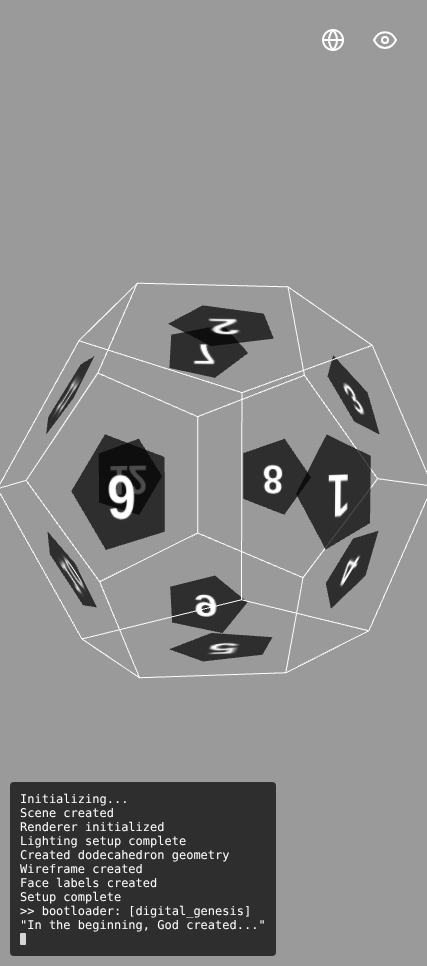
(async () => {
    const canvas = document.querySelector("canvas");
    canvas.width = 427;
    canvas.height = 966;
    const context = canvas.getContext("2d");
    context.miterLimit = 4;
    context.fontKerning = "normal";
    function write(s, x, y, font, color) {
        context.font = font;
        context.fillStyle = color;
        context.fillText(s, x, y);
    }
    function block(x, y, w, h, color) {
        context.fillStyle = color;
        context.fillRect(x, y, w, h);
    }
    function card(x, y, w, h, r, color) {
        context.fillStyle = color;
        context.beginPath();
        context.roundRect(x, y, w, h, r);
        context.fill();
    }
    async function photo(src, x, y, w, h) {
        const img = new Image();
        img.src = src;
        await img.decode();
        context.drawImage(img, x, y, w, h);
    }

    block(0, 0, 427, 966, "rgb(154, 154, 154)");
    await photo("media/1.png", 322, 29, 22, 22);
    context.beginPath();
    context.moveTo(374, 40);
    context.bezierCurveTo(379, 29.5, 391, 29.5, 396, 40);
    context.bezierCurveTo(391, 50.5, 379, 50.5, 374, 40);
    context.closePath();
    context.strokeStyle = "rgb(255, 255, 255)";
    context.lineWidth = 2;
    context.lineCap = "round";
    context.lineJoin = "round";
    context.stroke();
    context.beginPath();
    context.arc(385, 40, 3, 0, Math.PI * 2);
    context.stroke();
    await photo("media/2.png", 0, 282, 427, 397);
    card(10, 782, 266, 174, 4, "rgb(46, 46, 46)");
    write("Initializing...", 20, 803, "12px DejaVu Sans Mono", "rgb(255, 255, 255)");
    write("Scene created", 20, 817, "12px DejaVu Sans Mono", "rgb(255, 255, 255)");
    write("Renderer initialized", 20, 831, "12px DejaVu Sans Mono", "rgb(255, 255, 255)");
    write("Lighting setup complete", 20, 845, "12px DejaVu Sans Mono", "rgb(255, 255, 255)");
    write("Created dodecahedron geometry", 20, 859, "12px DejaVu Sans Mono", "rgb(255, 255, 255)");
    write("Wireframe created", 20, 873, "12px DejaVu Sans Mono", "rgb(255, 255, 255)");
    write("Face labels created", 20, 887, "12px DejaVu Sans Mono", "rgb(255, 255, 255)");
    write("Setup complete", 20, 901, "12px DejaVu Sans Mono", "rgb(255, 255, 255)");
    write(">> bootloader: [digital_genesis]", 20, 915, "12px DejaVu Sans Mono", "rgb(255, 255, 255)");
    write("\"In the beginning, God created...\"", 20, 929, "12px DejaVu Sans Mono", "rgb(255, 255, 255)");
    card(20, 933, 6, 12, 1, "rgb(213, 213, 213)");
})();
